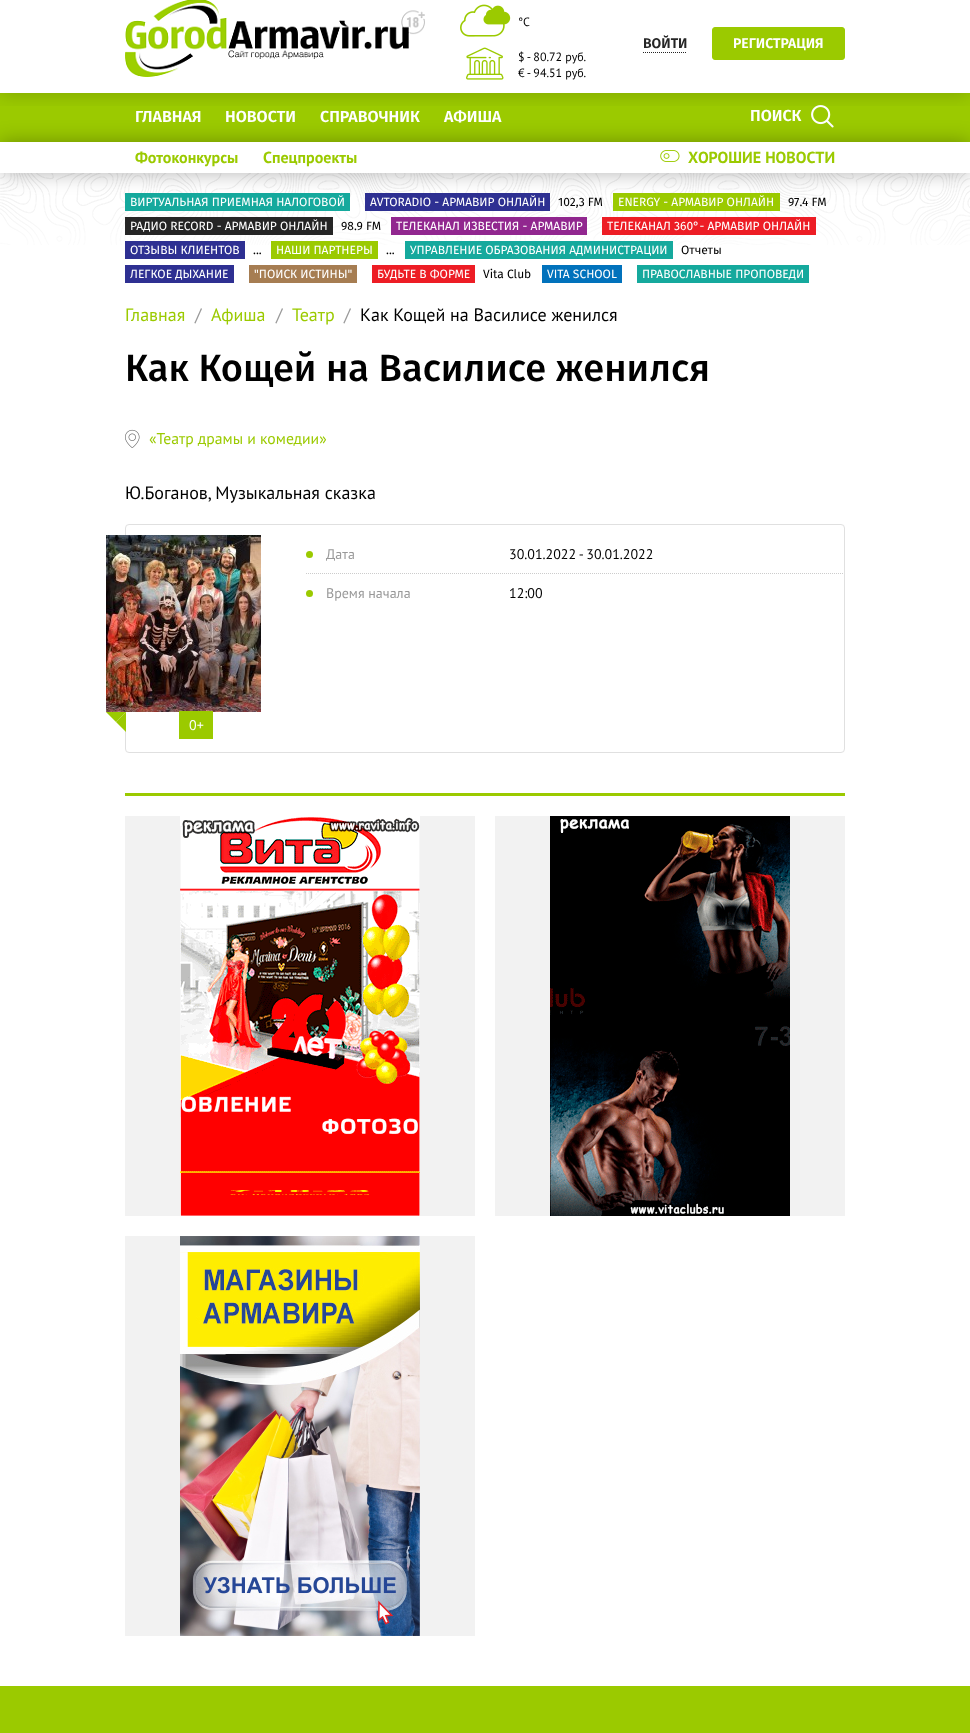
(async () => {
    const canvas = document.querySelector("canvas");
    canvas.width = 970;
    canvas.height = 1733;
    const context = canvas.getContext("2d");
    context.miterLimit = 4;
    context.fontKerning = "normal";
    function write(s, x, y, font, color) {
        context.font = font;
        context.fillStyle = color;
        context.fillText(s, x, y);
    }
    function block(x, y, w, h, color) {
        context.fillStyle = color;
        context.fillRect(x, y, w, h);
    }
    async function photo(src, x, y, w, h) {
        const img = new Image();
        img.src = src;
        await img.decode();
        context.drawImage(img, x, y, w, h);
    }

    block(0, 0, 970, 1733, "rgb(255, 255, 255)");
    block(0, 93, 970, 49, "rgb(155, 202, 0)");
    await photo("media/4.png", 811, 105, 23, 23);
    context.save();
    context.beginPath();
    context.rect(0, 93, 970, 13);
    context.clip();
    context.fillStyle = "rgba(0, 0, 0, 0.2)";
    context.filter = "blur(10px)";
    context.beginPath();
    context.rect(0, -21, 970, 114);
    context.fill();
    context.filter = "none";
    context.restore();
    await photo("media/1.png", 125, 0, 300, 77);
    await photo("media/2.png", 460, 4, 51, 33);
    write("°С", 518, 26, "12px PT Sans", "rgb(0, 0, 0)");
    await photo("media/3.png", 466, 47, 38, 33);
    write("$ - 80.72 руб.", 518, 61, "12px PT Sans", "rgb(0, 0, 0)");
    write("€ - 94.51 руб.", 518, 77, "12px PT Sans", "rgb(0, 0, 0)");
    write("ВОЙТИ", 643, 48, "600 14px Fira Sans", "rgb(37, 37, 37)");
    context.beginPath();
    context.moveTo(643, 52.5);
    context.lineTo(687, 52.5);
    context.strokeStyle = "rgb(37, 37, 37)";
    context.setLineDash([1, 1]);
    context.stroke();
    context.fillStyle = "rgb(155, 202, 0)";
    context.beginPath();
    context.roundRect(712.5, 27.5, 132, 32, 2.5);
    context.fill();
    context.strokeStyle = "rgb(155, 202, 0)";
    context.setLineDash([]);
    context.stroke();
    write("РЕГИСТРАЦИЯ", 733, 48, "600 14px Fira Sans", "rgb(255, 255, 255)");
    write("ГЛАВНАЯ", 135, 122, "600 16px Fira Sans", "rgb(255, 255, 255)");
    write("НОВОСТИ", 225, 122, "600 16px Fira Sans", "rgb(255, 255, 255)");
    write("СПРАВОЧНИК", 320, 122, "600 16px Fira Sans", "rgb(255, 255, 255)");
    write("АФИША", 444, 122, "600 16px Fira Sans", "rgb(255, 255, 255)");
    write("ПОИСК", 750, 121, "600 16px Fira Sans", "rgb(255, 255, 255)");
    await photo("media/6.png", 0, 173, 970, 72);
    block(125, 193, 225, 18, "rgb(21, 169, 157)");
    block(365, 193, 185, 18, "rgb(46, 48, 146)");
    block(613, 193, 167, 18, "rgb(155, 202, 0)");
    context.save();
    context.beginPath();
    context.moveTo(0, 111);
    context.lineTo(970, 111);
    context.lineTo(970, 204);
    context.lineTo(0, 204);
    context.closePath();
    context.moveTo(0, 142);
    context.lineTo(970, 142);
    context.lineTo(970, 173);
    context.lineTo(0, 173);
    context.closePath();
    context.clip("evenodd");
    context.fillStyle = "rgba(0, 0, 0, 0.3)";
    context.filter = "blur(10px)";
    context.beginPath();
    context.rect(0, 142, 970, 31);
    context.fill();
    context.filter = "none";
    context.restore();
    write("Фотоконкурсы", 135, 163, "bold 16px PT Sans", "rgb(155, 202, 0)");
    write("Спецпроекты", 263, 163, "bold 16px PT Sans", "rgb(155, 202, 0)");
    await photo("media/5.png", 660, 150, 20, 12);
    write("ХОРОШИЕ НОВОСТИ", 688, 163, "bold 16px PT Sans", "rgb(155, 202, 0)");
    write("ВИРТУАЛЬНАЯ ПРИЕМНАЯ НАЛОГОВОЙ", 130, 206, "12px Fira Sans", "rgb(255, 255, 255)");
    write("AVTORADIO - АРМАВИР ОНЛАЙН", 370, 206, "12px Fira Sans", "rgb(255, 255, 255)");
    write("102,3 FM", 558, 206, "12px Fira Sans", "rgb(0, 0, 0)");
    write("ENERGY - АРМАВИР ОНЛАЙН", 618, 206, "12px Fira Sans", "rgb(255, 255, 255)");
    write("97.4 FM", 788, 206, "12px Fira Sans", "rgb(0, 0, 0)");
    block(125, 217, 208, 18, "rgb(37, 37, 37)");
    write("РАДИО RECORD - АРМАВИР ОНЛАЙН", 130, 230, "12px Fira Sans", "rgb(255, 255, 255)");
    write("98.9 FM", 341, 230, "12px Fira Sans", "rgb(0, 0, 0)");
    block(391, 217, 196, 18, "rgb(145, 39, 143)");
    write("ТЕЛЕКАНАЛ ИЗВЕСТИЯ - АРМАВИР", 396, 230, "12px Fira Sans", "rgb(255, 255, 255)");
    block(602, 217, 214, 18, "rgb(237, 29, 37)");
    write("ТЕЛЕКАНАЛ 360°- АРМАВИР ОНЛАЙН", 607, 230, "12px Fira Sans", "rgb(255, 255, 255)");
    block(125, 241, 120, 18, "rgb(46, 48, 146)");
    write("ОТЗЫВЫ КЛИЕНТОВ", 130, 254, "12px Fira Sans", "rgb(255, 255, 255)");
    write("...", 253, 254, "12px Fira Sans", "rgb(0, 0, 0)");
    block(271, 241, 107, 18, "rgb(155, 202, 0)");
    write("НАШИ ПАРТНЕРЫ", 276, 254, "12px Fira Sans", "rgb(255, 255, 255)");
    write("...", 386, 254, "12px Fira Sans", "rgb(0, 0, 0)");
    block(405, 241, 268, 18, "rgb(21, 169, 157)");
    write("УПРАВЛЕНИЕ ОБРАЗОВАНИЯ АДМИНИСТРАЦИИ", 410, 254, "12px Fira Sans", "rgb(255, 255, 255)");
    write("Отчеты", 681, 254, "12px Fira Sans", "rgb(0, 0, 0)");
    block(125, 265, 109, 18, "rgb(46, 48, 146)");
    write("ЛЕГКОЕ ДЫХАНИЕ", 130, 278, "12px Fira Sans", "rgb(255, 255, 255)");
    block(249, 265, 108, 18, "rgb(166, 125, 82)");
    write("\"ПОИСК ИСТИНЫ\"", 254, 278, "12px Fira Sans", "rgb(255, 255, 255)");
    block(372, 265, 103, 18, "rgb(237, 29, 37)");
    write("БУДЬТЕ В ФОРМЕ", 377, 278, "12px Fira Sans", "rgb(255, 255, 255)");
    write("Vita Club", 483, 278, "12px Fira Sans", "rgb(0, 0, 0)");
    block(542, 265, 80, 18, "rgb(1, 114, 188)");
    write("VITA SCHOOL", 547, 278, "12px Fira Sans", "rgb(255, 255, 255)");
    block(637, 265, 172, 18, "rgb(21, 169, 157)");
    write("ПРАВОСЛАВНЫЕ ПРОПОВЕДИ", 642, 278, "12px Fira Sans", "rgb(255, 255, 255)");
    write("Главная", 125, 321, "18px PT Sans", "rgb(155, 202, 0)");
    write("/", 195, 321, "18px PT Sans", "rgb(153, 153, 153)");
    write("Афиша", 211, 321, "18px PT Sans", "rgb(155, 202, 0)");
    write("/", 276, 321, "18px PT Sans", "rgb(153, 153, 153)");
    write("Театр", 292, 321, "18px PT Sans", "rgb(155, 202, 0)");
    write("/", 344, 321, "18px PT Sans", "rgb(153, 153, 153)");
    write("Как Кощей на Василисе женился", 360, 321, "18px PT Sans", "rgb(0, 0, 0)");
    write("Как Кощей на Василисе женился", 125, 381, "500 38px Fira Sans", "rgb(0, 0, 0)");
    await photo("media/7.png", 125, 429, 15, 19);
    write("«Театр драмы и комедии»", 149, 444, "15.7px PT Sans", "rgb(155, 202, 0)");
    write("Ю.Боганов, Музыкальная сказка", 125, 499, "18px PT Sans", "rgb(0, 0, 0)");
    context.beginPath();
    context.roundRect(125.5, 524.5, 719, 228, 3.5);
    context.strokeStyle = "rgb(224, 224, 224)";
    context.stroke();
    context.fillStyle = "rgb(155, 202, 0)";
    context.beginPath();
    context.arc(309.5, 554.5, 3.5, 0, Math.PI * 2);
    context.fill();
    write("Дата", 326, 559, "14px PT Sans", "rgb(153, 153, 153)");
    write("30.01.2022 - 30.01.2022", 509, 559, "14px PT Sans", "rgb(0, 0, 0)");
    context.beginPath();
    context.moveTo(306, 573.5);
    context.lineTo(844, 573.5);
    context.strokeStyle = "rgb(204, 204, 204)";
    context.setLineDash([1, 1]);
    context.stroke();
    context.fillStyle = "rgb(155, 202, 0)";
    context.beginPath();
    context.arc(309.5, 593.5, 3.5, 0, Math.PI * 2);
    context.fill();
    write("Время начала", 326, 598, "14px PT Sans", "rgb(153, 153, 153)");
    write("12:00", 509, 598, "14px PT Sans", "rgb(0, 0, 0)");
    await photo("media/8.png", 106, 535, 155, 177);
    context.fillStyle = "rgb(155, 202, 0)";
    context.beginPath();
    context.moveTo(106, 712);
    context.lineTo(126, 712);
    context.lineTo(116, 722);
    context.closePath();
    context.fill();
    context.beginPath();
    context.moveTo(126, 712);
    context.lineTo(126, 732);
    context.lineTo(116, 722);
    context.closePath();
    context.fill();
    block(179, 711, 34, 28, "rgb(155, 202, 0)");
    write("0+", 189, 730, "14px PT Sans", "rgb(255, 255, 255)");
    block(125, 793, 720, 3, "rgb(155, 202, 0)");
    block(125, 816, 350, 400, "rgb(242, 242, 242)");
    await photo("media/9.png", 180, 816, 240, 400);
    block(495, 816, 350, 400, "rgb(242, 242, 242)");
    await photo("media/10.png", 550, 816, 240, 400);
    block(125, 1236, 350, 400, "rgb(242, 242, 242)");
    await photo("media/11.png", 180, 1236, 240, 400);
    block(0, 1686, 970, 47, "rgb(155, 202, 0)");
})();
